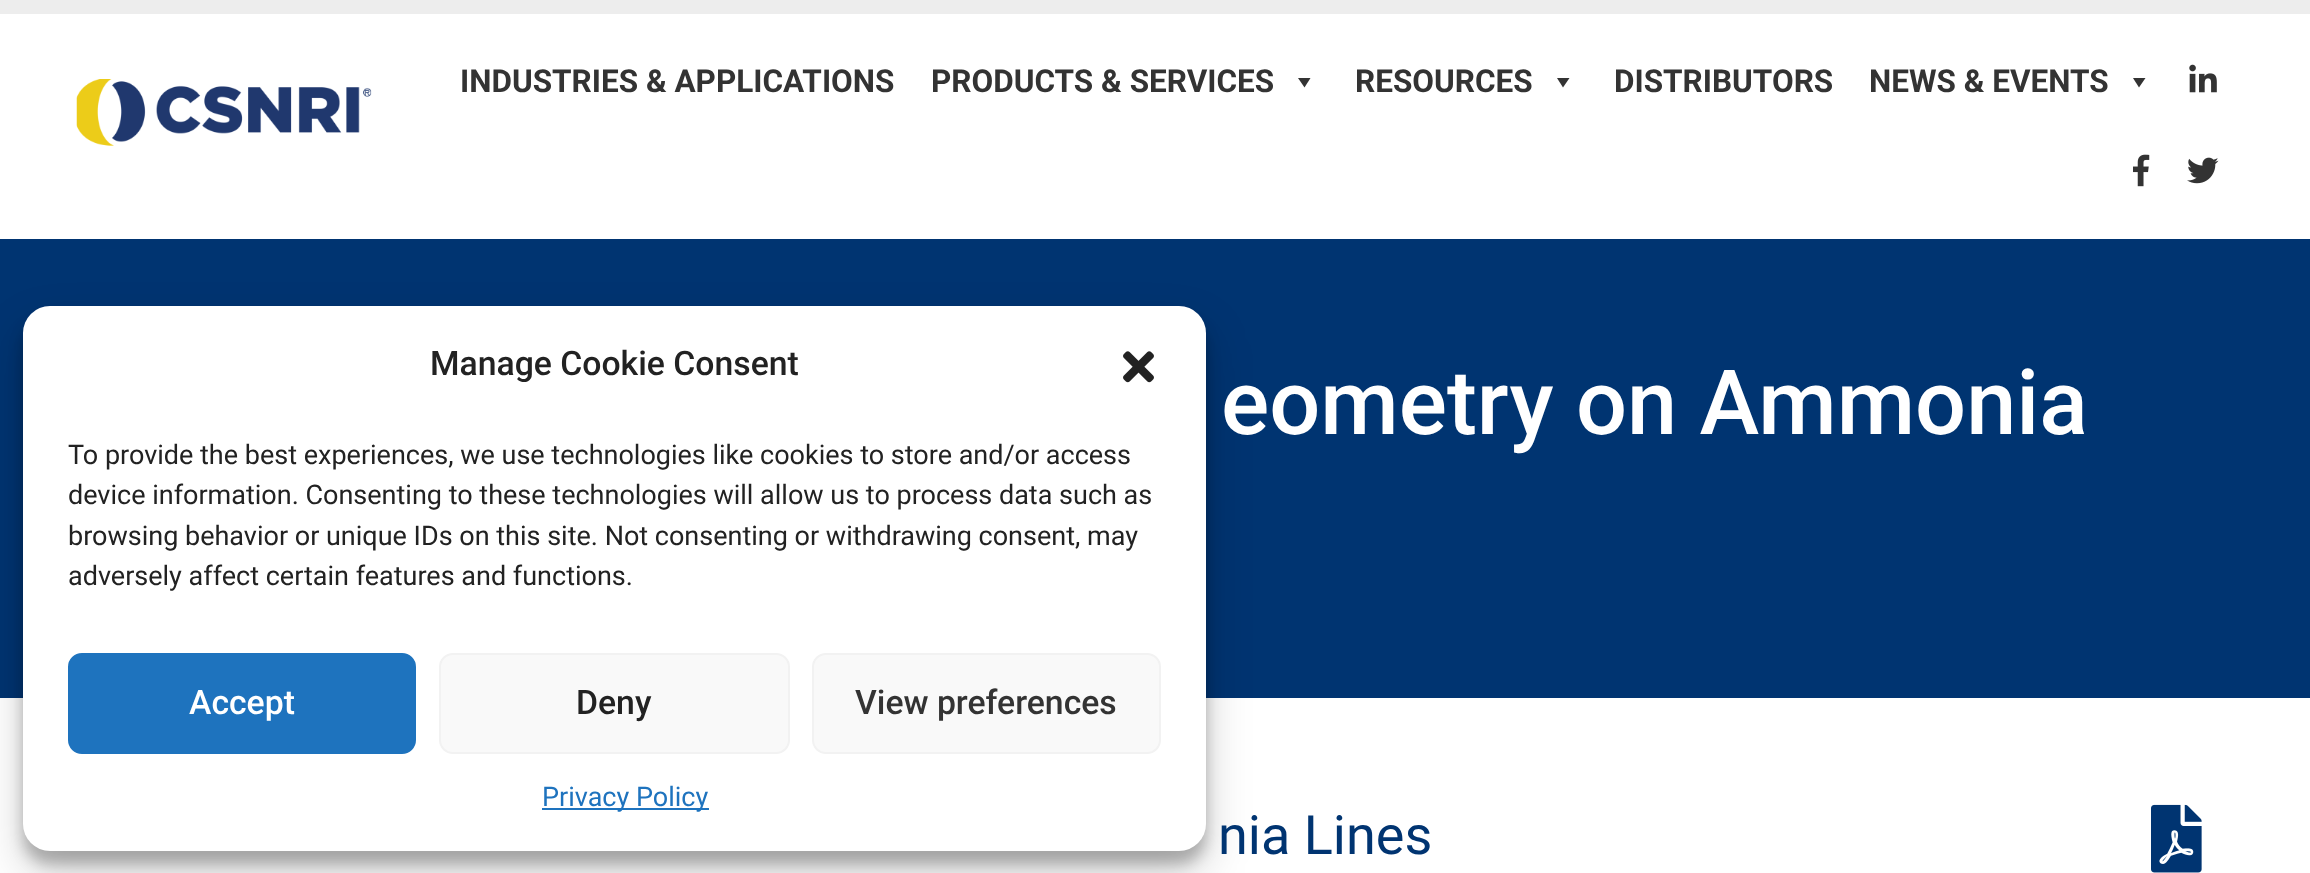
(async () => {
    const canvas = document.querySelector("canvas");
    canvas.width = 2310;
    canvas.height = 873;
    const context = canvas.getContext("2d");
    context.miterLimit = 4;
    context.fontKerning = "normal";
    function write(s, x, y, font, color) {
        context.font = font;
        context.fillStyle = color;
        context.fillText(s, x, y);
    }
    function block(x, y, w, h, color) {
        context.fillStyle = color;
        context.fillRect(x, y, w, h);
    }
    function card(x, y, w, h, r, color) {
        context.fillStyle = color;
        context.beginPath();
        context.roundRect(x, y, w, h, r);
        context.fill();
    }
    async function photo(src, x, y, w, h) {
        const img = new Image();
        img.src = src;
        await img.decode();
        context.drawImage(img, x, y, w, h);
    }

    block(0, 0, 2310, 873, "rgb(255, 255, 255)");
    block(0, 0, 2310, 14, "rgb(237, 237, 237)");
    await photo("media/1.png", 76, 79, 296, 67);
    write("INDUSTRIES & APPLICATIONS", 460, 92, "bold 31.5px Roboto", "rgb(51, 51, 51)");
    write("PRODUCTS & SERVICES", 931, 92, "bold 31.5px Roboto", "rgb(51, 51, 51)");
    context.beginPath();
    context.moveTo(1310.5, 78);
    context.lineTo(1304.5, 87.5);
    context.lineTo(1298, 78);
    context.closePath();
    context.fill();
    write("RESOURCES", 1355, 92, "bold 31.5px Roboto", "rgb(51, 51, 51)");
    context.beginPath();
    context.moveTo(1569.5, 78);
    context.lineTo(1563, 87.5);
    context.lineTo(1557, 78);
    context.closePath();
    context.fill();
    write("DISTRIBUTORS", 1614, 92, "bold 31.5px Roboto", "rgb(51, 51, 51)");
    write("NEWS & EVENTS", 1869, 92, "bold 31.5px Roboto", "rgb(51, 51, 51)");
    context.beginPath();
    context.moveTo(2145.5, 78);
    context.lineTo(2139, 87.5);
    context.lineTo(2133, 78);
    context.closePath();
    context.fill();
    await photo("media/2.png", 2189, 64, 28, 29);
    await photo("media/3.png", 2133, 154, 17, 33);
    await photo("media/4.png", 2187, 157, 32, 27);
    block(0, 239, 2310, 459, "rgb(0, 52, 113)");
    context.fillStyle = "rgba(0, 0, 0, 0.23)";
    context.filter = "blur(7px)";
    context.beginPath();
    context.roundRect(23, 320, 1183, 544, 27);
    context.fill();
    context.filter = "none";
    context.fillStyle = "rgba(0, 0, 0, 0.19)";
    context.filter = "blur(22.5px)";
    context.beginPath();
    context.roundRect(23, 329, 1183, 544, 27);
    context.fill();
    context.filter = "none";
    card(23, 306, 1183, 545, 27, "rgb(255, 255, 255)");
    write("Manage Cookie Consent", 430, 375, "500 33.75px Roboto", "rgb(34, 34, 34)");
    await photo("media/5.png", 1123, 351, 31, 32);
    write("To provide the best experiences, we use technologies like cookies to store and/or access", 68, 464, "27px Roboto", "rgb(34, 34, 34)");
    write("device information. Consenting to these technologies will allow us to process data such as", 68, 504, "27px Roboto", "rgb(34, 34, 34)");
    write("browsing behavior or unique IDs on this site. Not consenting or withdrawing consent, may", 68, 545, "27px Roboto", "rgb(34, 34, 34)");
    write("adversely affect certain features and functions.", 68, 585, "27px Roboto", "rgb(34, 34, 34)");
    context.fillStyle = "rgb(30, 115, 190)";
    context.beginPath();
    context.roundRect(69, 654, 346, 99, 13);
    context.fill();
    context.strokeStyle = "rgb(30, 115, 190)";
    context.lineWidth = 2;
    context.stroke();
    write("Accept", 189, 714, "500 33.75px Roboto", "rgb(255, 255, 255)");
    context.fillStyle = "rgb(249, 249, 249)";
    context.beginPath();
    context.roundRect(440, 654, 349, 99, 13);
    context.fill();
    context.strokeStyle = "rgb(242, 242, 242)";
    context.stroke();
    write("Deny", 576, 714, "500 33.75px Roboto", "rgb(34, 34, 34)");
    context.fillStyle = "rgb(249, 249, 249)";
    context.beginPath();
    context.roundRect(813, 654, 347, 99, 13);
    context.fill();
    context.stroke();
    write("View preferences", 855, 714, "500 33.75px Roboto", "rgb(51, 51, 51)");
    block(542, 808, 167, 2, "rgb(30, 115, 190)");
    write("Privacy Policy", 542, 806, "27px Roboto", "rgb(30, 115, 190)");
    write("eometry on Ammonia", 1221, 434, "500 90px Roboto", "rgb(255, 255, 255)");
    write("nia Lines", 1218, 854, "54px Roboto", "rgb(0, 52, 113)");
    await photo("media/6.png", 2151, 804, 51, 69);
})();
